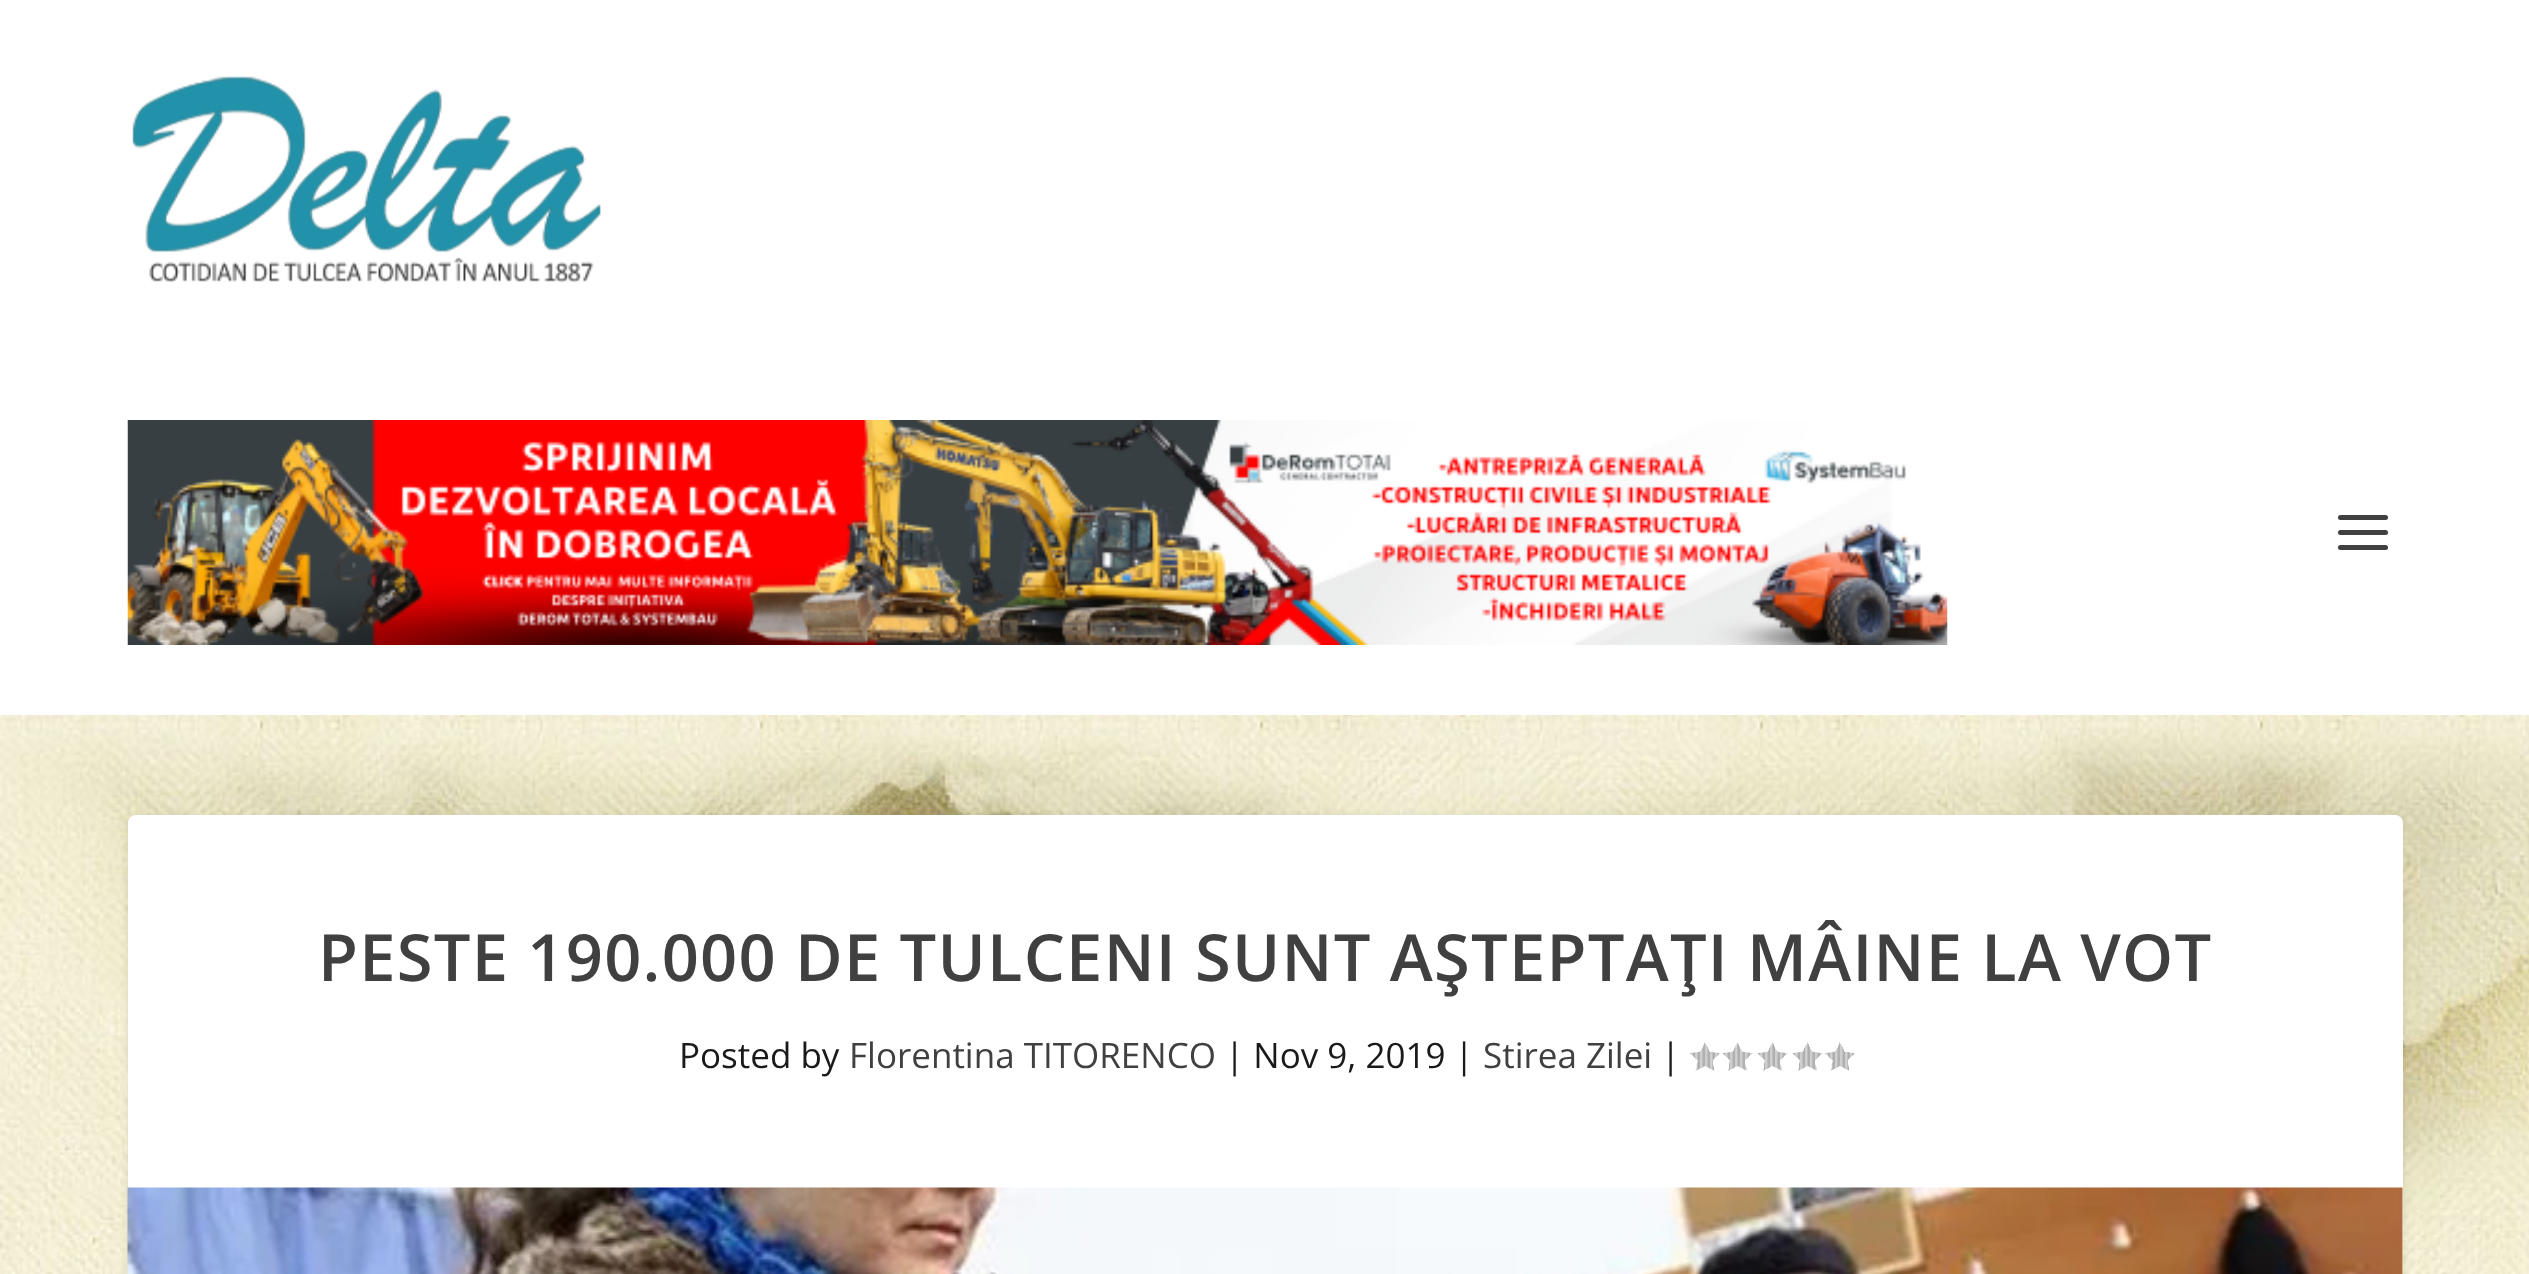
(async () => {
    const canvas = document.querySelector("canvas");
    canvas.width = 2529;
    canvas.height = 1274;
    const context = canvas.getContext("2d");
    context.miterLimit = 4;
    context.fontKerning = "normal";
    function write(s, x, y, font, color) {
        context.font = font;
        context.fillStyle = color;
        context.fillText(s, x, y);
    }
    function block(x, y, w, h, color) {
        context.fillStyle = color;
        context.fillRect(x, y, w, h);
    }
    function card(x, y, w, h, r, color) {
        context.fillStyle = color;
        context.beginPath();
        context.roundRect(x, y, w, h, r);
        context.fill();
    }
    async function photo(src, x, y, w, h) {
        const img = new Image();
        img.src = src;
        await img.decode();
        context.drawImage(img, x, y, w, h);
    }

    block(0, 0, 2529, 1274, "rgb(255, 255, 255)");
    await photo("media/1.png", 132, 76, 469, 207);
    await photo("media/2.png", 127, 420, 1821, 225);
    card(2338, 515, 50, 5, 2.5, "rgb(64, 64, 64)");
    card(2338, 530, 50, 5, 2.5, "rgb(64, 64, 64)");
    card(2338, 545, 50, 5, 2.5, "rgb(64, 64, 64)");
    await photo("media/3.png", 0, 715, 2529, 559);
    context.fillStyle = "rgba(0, 0, 0, 0.1)";
    context.filter = "blur(4px)";
    context.beginPath();
    context.roundRect(128, 818, 2275, 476, 8);
    context.fill();
    context.filter = "none";
    card(128, 815, 2275, 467, 8, "rgb(255, 255, 255)");
    context.letterSpacing = "1.25px";
    write("PESTE 190.000 DE TULCENI SUNT AŞTEPTAŢI MÂINE LA VOT", 318, 981, "600 65px Open Sans", "rgb(64, 64, 64)");
    context.letterSpacing = "0px";
    write("Posted by", 679, 1068, "35px Open Sans", "rgb(26, 26, 26)");
    write("Florentina TITORENCO", 849, 1068, "35px Open Sans", "rgb(64, 64, 64)");
    write("| Nov 9, 2019 |", 1225, 1068, "35px Open Sans", "rgb(26, 26, 26)");
    write("Stirea Zilei", 1483, 1068, "35px Open Sans", "rgb(64, 64, 64)");
    write("|", 1661, 1068, "35px Open Sans", "rgb(26, 26, 26)");
    await photo("media/4.png", 1690, 1042, 30, 29);
    await photo("media/5.png", 1722, 1042, 31, 29);
    await photo("media/5.png", 1757, 1042, 31, 29);
    await photo("media/5.png", 1792, 1042, 31, 29);
    await photo("media/4.png", 1825, 1042, 30, 29);
    await photo("media/6.png", 127, 1187, 2276, 87);
})();
